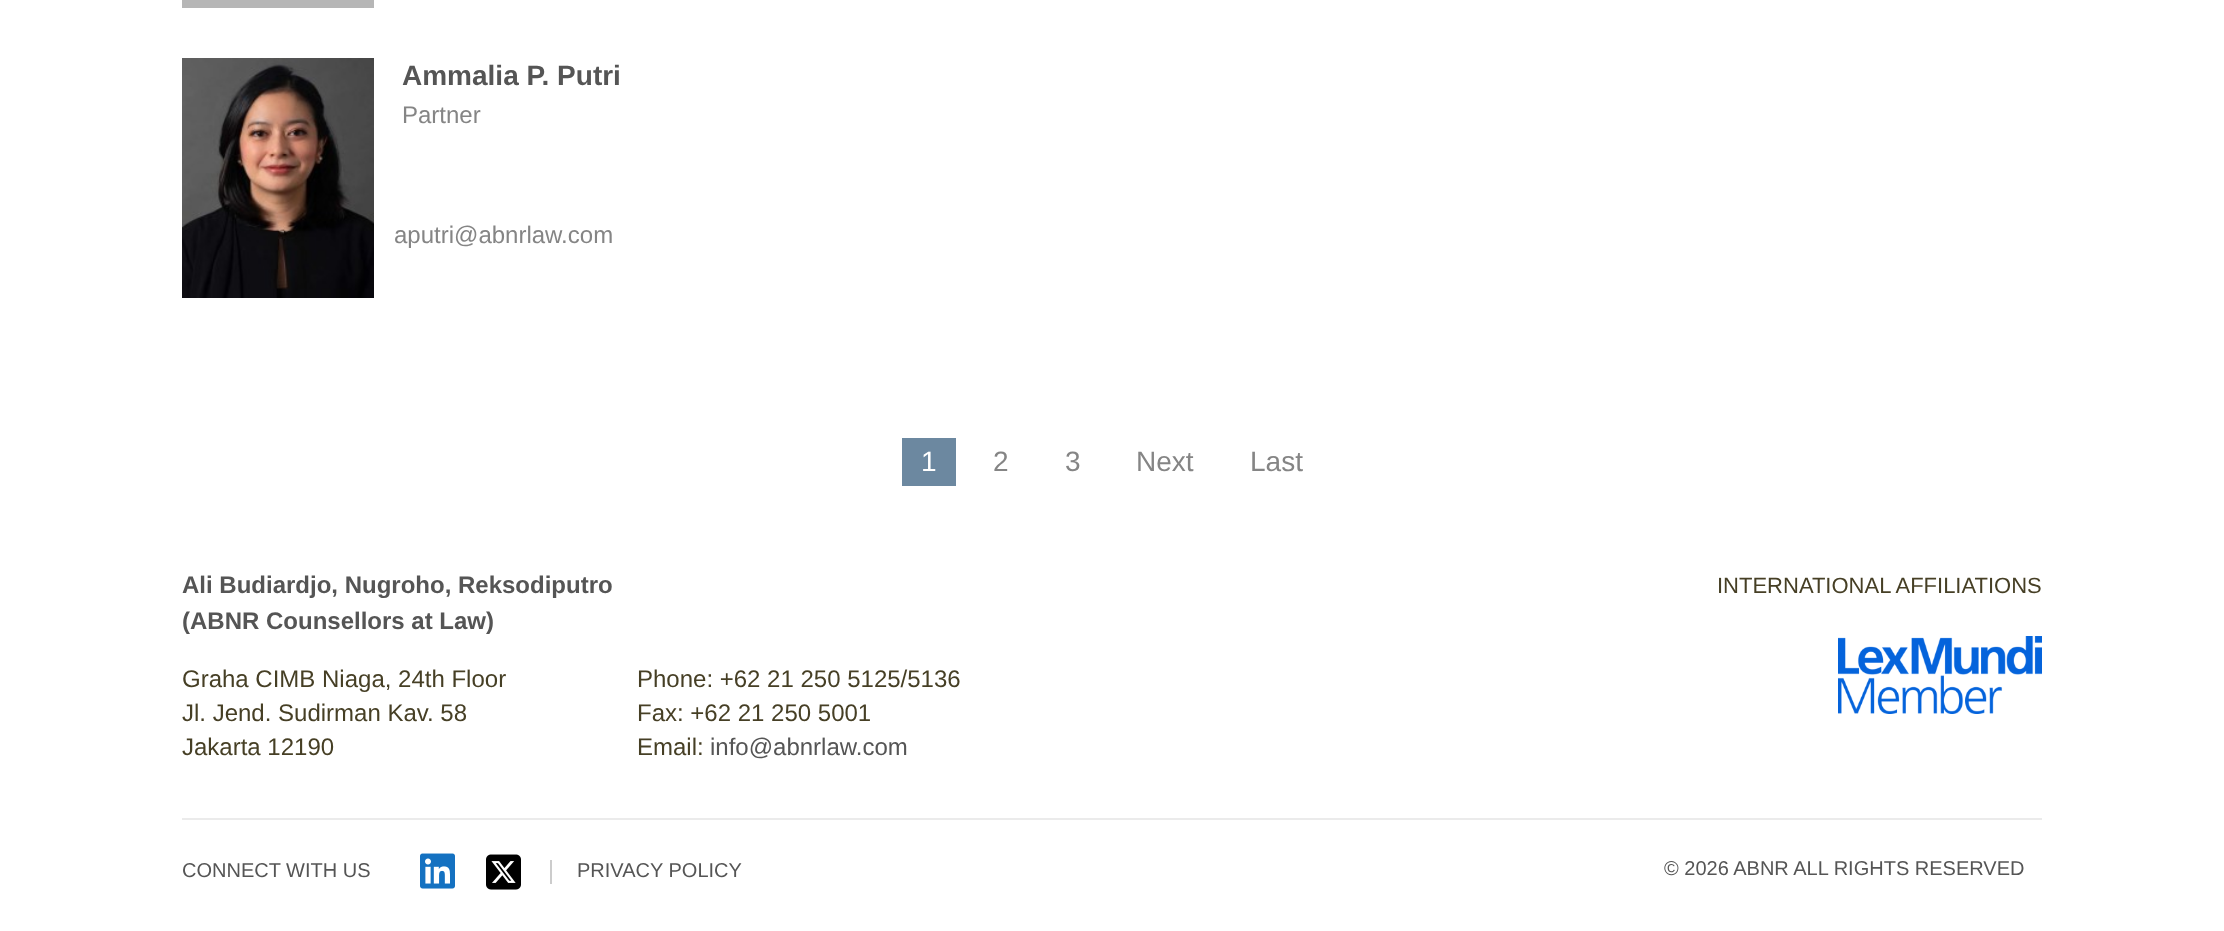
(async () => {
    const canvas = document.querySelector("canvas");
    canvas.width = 2224;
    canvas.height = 931;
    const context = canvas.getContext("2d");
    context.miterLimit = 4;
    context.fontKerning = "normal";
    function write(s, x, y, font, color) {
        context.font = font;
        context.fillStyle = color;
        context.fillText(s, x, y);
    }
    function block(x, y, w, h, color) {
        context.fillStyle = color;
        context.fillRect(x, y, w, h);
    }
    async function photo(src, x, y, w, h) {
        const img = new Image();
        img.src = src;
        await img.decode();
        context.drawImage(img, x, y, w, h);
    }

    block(0, 0, 2224, 931, "rgb(255, 255, 255)");
    block(182, 0, 192, 8, "rgb(182, 182, 182)");
    await photo("media/1.png", 182, 58, 192, 240);
    write("Ammalia P. Putri", 402, 85, "bold 28px Liberation Sans", "rgb(85, 85, 85)");
    write("Partner", 402, 123, "24px Liberation Sans", "rgb(133, 133, 133)");
    write("aputri@abnrlaw.com", 394, 243, "24px Liberation Sans", "rgb(133, 133, 133)");
    block(902, 438, 54, 48, "rgb(108, 136, 160)");
    write("1", 921, 471, "28px Liberation Sans", "rgb(255, 255, 255)");
    write("2", 993, 471, "28px Liberation Sans", "rgb(133, 133, 133)");
    write("3", 1065, 471, "28px Liberation Sans", "rgb(133, 133, 133)");
    write("Next", 1136, 471, "28px Liberation Sans", "rgb(133, 133, 133)");
    write("Last", 1250, 471, "28px Liberation Sans", "rgb(133, 133, 133)");
    write("Ali Budiardjo, Nugroho, Reksodiputro", 182, 593, "bold 24px Liberation Sans", "rgb(85, 85, 85)");
    write("(ABNR Counsellors at Law)", 182, 629, "bold 24px Liberation Sans", "rgb(85, 85, 85)");
    write("Graha CIMB Niaga, 24th Floor", 182, 687, "24px Liberation Sans", "rgb(70, 63, 37)");
    write("Jl. Jend. Sudirman Kav. 58", 182, 721, "24px Liberation Sans", "rgb(70, 63, 37)");
    write("Jakarta 12190", 182, 755, "24px Liberation Sans", "rgb(70, 63, 37)");
    write("Phone: +62 21 250 5125/5136", 637, 687, "24px Liberation Sans", "rgb(70, 63, 37)");
    write("Fax: +62 21 250 5001", 637, 721, "24px Liberation Sans", "rgb(70, 63, 37)");
    write("Email:", 637, 755, "24px Liberation Sans", "rgb(70, 63, 37)");
    write("info@abnrlaw.com", 710, 755, "24px Liberation Sans", "rgb(85, 85, 85)");
    write("INTERNATIONAL AFFILIATIONS", 1717, 593, "22px Liberation Sans", "rgb(70, 63, 37)");
    await photo("media/2.png", 1838, 636, 204, 78);
    block(182, 818, 1860, 2, "rgb(235, 235, 235)");
    write("CONNECT WITH US", 182, 877, "20px Liberation Sans", "rgb(85, 85, 85)");
    await photo("media/3.png", 420, 853, 35, 36);
    await photo("media/4.png", 486, 854, 35, 36);
    block(550, 860, 2, 24, "rgb(204, 204, 204)");
    write("PRIVACY POLICY", 577, 877, "20px Liberation Sans", "rgb(85, 85, 85)");
    write("© 2026 ABNR ALL RIGHTS RESERVED", 1664, 875, "20px Liberation Sans", "rgb(85, 85, 85)");
})();
